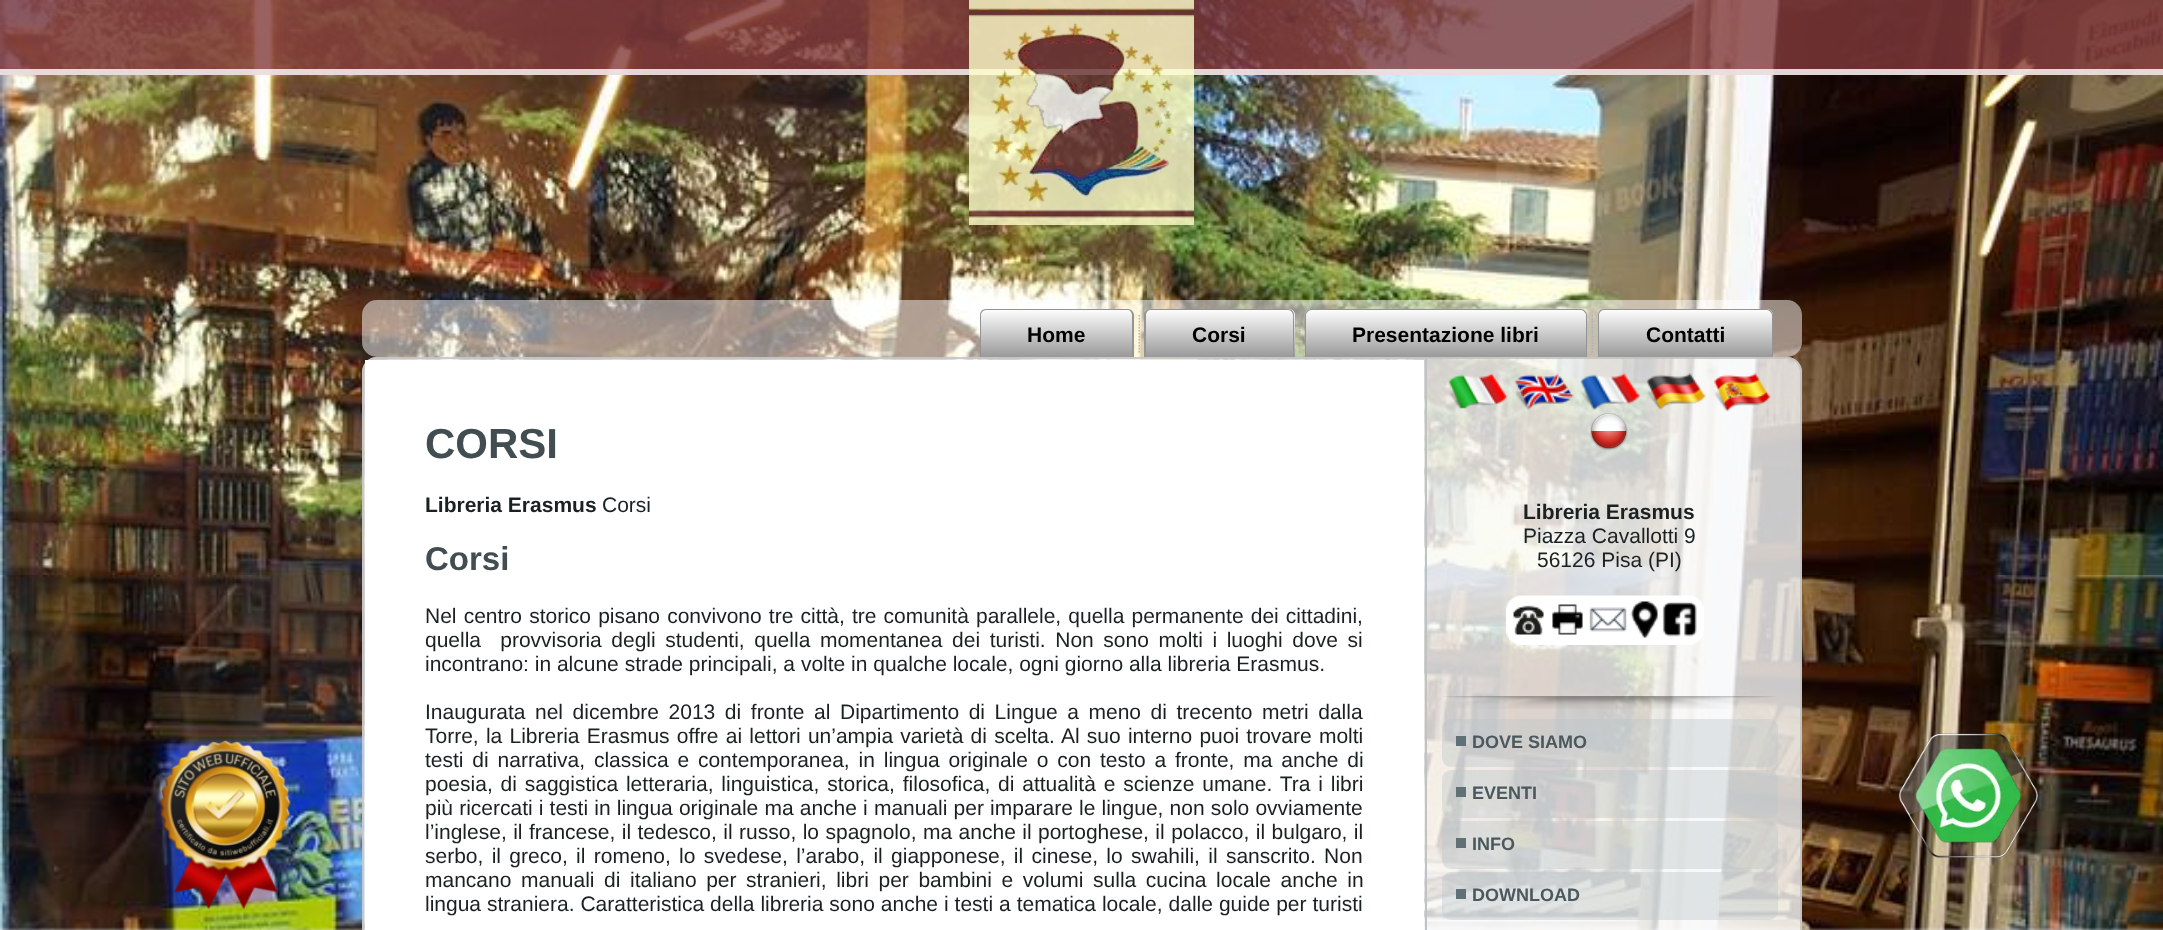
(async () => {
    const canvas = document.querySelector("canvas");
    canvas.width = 2163;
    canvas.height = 930;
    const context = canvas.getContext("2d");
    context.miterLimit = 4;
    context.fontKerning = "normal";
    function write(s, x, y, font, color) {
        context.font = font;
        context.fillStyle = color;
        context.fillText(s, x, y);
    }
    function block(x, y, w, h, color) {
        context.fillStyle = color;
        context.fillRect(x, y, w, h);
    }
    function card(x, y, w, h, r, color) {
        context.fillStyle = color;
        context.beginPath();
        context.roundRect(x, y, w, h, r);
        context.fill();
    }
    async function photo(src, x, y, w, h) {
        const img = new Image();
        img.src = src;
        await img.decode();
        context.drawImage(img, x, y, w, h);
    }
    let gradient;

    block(0, 0, 2163, 930, "rgb(255, 255, 255)");
    await photo("media/1.png", 0, 0, 2163, 930);
    block(0, 0, 2163, 75, "rgba(129, 57, 59, 0.8)");
    block(0, 69, 2163, 6, "rgba(255, 255, 255, 0.8)");
    await photo("media/2.png", 969, 0, 225, 225);
    await photo("media/3.png", 159, 740, 132, 170);
    card(362, 300, 1440, 57, 15, "rgba(255, 255, 255, 0.5)");
    gradient = context.createLinearGradient(1057, 309, 1057, 357);
    gradient.addColorStop(0, "rgb(255, 255, 255)");
    gradient.addColorStop(1, "rgb(153, 153, 153)");
    context.fillStyle = gradient;
    context.beginPath();
    context.roundRect(980, 309, 154, 48, [6, 6, 0, 0]);
    context.fill();
    context.fillStyle = "rgb(148, 148, 148)";
    context.beginPath();
    context.moveTo(986, 309);
    context.lineTo(1128, 309);
    context.bezierCurveTo(1131, 309, 1134, 312, 1134, 315);
    context.lineTo(1134, 357);
    context.lineTo(980, 357);
    context.lineTo(980, 315);
    context.bezierCurveTo(980, 312, 982, 309, 986, 309);
    context.closePath();
    context.moveTo(986, 310);
    context.lineTo(1128, 310);
    context.bezierCurveTo(1130, 310, 1132, 313, 1132, 315);
    context.lineTo(1132, 357);
    context.lineTo(981, 357);
    context.lineTo(981, 315);
    context.bezierCurveTo(981, 313, 983, 310, 986, 310);
    context.closePath();
    context.fill("evenodd");
    write("Home", 1027, 342, "bold 21px Liberation Sans", "rgb(0, 0, 0)");
    await photo("media/4.png", 1138, 314, 2, 39);
    gradient = context.createLinearGradient(1220, 309, 1220, 357);
    gradient.addColorStop(0, "rgb(255, 255, 255)");
    gradient.addColorStop(1, "rgb(153, 153, 153)");
    context.fillStyle = gradient;
    context.beginPath();
    context.roundRect(1145, 309, 150, 48, [6, 6, 0, 0]);
    context.fill();
    context.fillStyle = "rgb(148, 148, 148)";
    context.beginPath();
    context.moveTo(1150, 309);
    context.lineTo(1288, 309);
    context.bezierCurveTo(1292, 309, 1294, 312, 1294, 315);
    context.lineTo(1294, 357);
    context.lineTo(1144, 357);
    context.lineTo(1144, 315);
    context.bezierCurveTo(1144, 312, 1147, 309, 1150, 309);
    context.closePath();
    context.moveTo(1150, 310);
    context.lineTo(1288, 310);
    context.bezierCurveTo(1291, 310, 1293, 313, 1293, 315);
    context.lineTo(1293, 357);
    context.lineTo(1146, 357);
    context.lineTo(1146, 315);
    context.bezierCurveTo(1146, 313, 1148, 310, 1150, 310);
    context.closePath();
    context.fill("evenodd");
    write("Corsi", 1192, 342, "bold 21px Liberation Sans", "rgb(0, 0, 0)");
    await photo("media/5.png", 1299, 315, 2, 38);
    gradient = context.createLinearGradient(1446, 309, 1446, 357);
    gradient.addColorStop(0, "rgb(255, 255, 255)");
    gradient.addColorStop(1, "rgb(153, 153, 153)");
    context.fillStyle = gradient;
    context.beginPath();
    context.roundRect(1305, 309, 282, 48, [6, 6, 0, 0]);
    context.fill();
    context.fillStyle = "rgb(148, 148, 148)";
    context.beginPath();
    context.moveTo(1311, 309);
    context.lineTo(1581, 309);
    context.bezierCurveTo(1584, 309, 1587, 312, 1587, 315);
    context.lineTo(1587, 357);
    context.lineTo(1305, 357);
    context.lineTo(1305, 315);
    context.bezierCurveTo(1305, 312, 1308, 309, 1311, 309);
    context.closePath();
    context.moveTo(1311, 310);
    context.lineTo(1581, 310);
    context.bezierCurveTo(1583, 310, 1586, 313, 1586, 315);
    context.lineTo(1586, 357);
    context.lineTo(1306, 357);
    context.lineTo(1306, 315);
    context.bezierCurveTo(1306, 313, 1309, 310, 1311, 310);
    context.closePath();
    context.fill("evenodd");
    write("Presentazione libri", 1352, 342, "bold 21px Liberation Sans", "rgb(0, 0, 0)");
    await photo("media/6.png", 1591, 314, 2, 39);
    gradient = context.createLinearGradient(1685, 309, 1685, 357);
    gradient.addColorStop(0, "rgb(255, 255, 255)");
    gradient.addColorStop(1, "rgb(153, 153, 153)");
    context.fillStyle = gradient;
    context.beginPath();
    context.roundRect(1598, 309, 175, 48, [6, 6, 0, 0]);
    context.fill();
    context.fillStyle = "rgb(148, 148, 148)";
    context.beginPath();
    context.moveTo(1604, 309);
    context.lineTo(1767, 309);
    context.bezierCurveTo(1770, 309, 1773, 312, 1773, 315);
    context.lineTo(1773, 357);
    context.lineTo(1598, 357);
    context.lineTo(1598, 315);
    context.bezierCurveTo(1598, 312, 1600, 309, 1604, 309);
    context.closePath();
    context.moveTo(1604, 310);
    context.lineTo(1767, 310);
    context.bezierCurveTo(1769, 310, 1772, 313, 1772, 315);
    context.lineTo(1772, 357);
    context.lineTo(1599, 357);
    context.lineTo(1599, 315);
    context.bezierCurveTo(1599, 313, 1601, 310, 1604, 310);
    context.closePath();
    context.fill("evenodd");
    write("Contatti", 1646, 342, "bold 21px Liberation Sans", "rgb(0, 0, 0)");
    card(362, 357, 1440, 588, 15, "rgba(249, 250, 251, 0.8)");
    context.beginPath();
    context.roundRect(363, 358, 1438, 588, 14);
    context.strokeStyle = "rgba(191, 191, 191, 0.8)";
    context.lineWidth = 2;
    context.stroke();
    block(365, 360, 1059, 570, "rgb(255, 255, 255)");
    write("CORSI", 425, 458, "bold 42px Liberation Sans", "rgb(66, 77, 82)");
    write("Libreria Erasmus", 425, 512, "bold 21px Liberation Sans", "rgb(27, 32, 34)");
    write("Corsi", 602, 512, "21px Liberation Sans", "rgb(27, 32, 34)");
    write("Corsi", 425, 570, "bold 33px Liberation Sans", "rgb(66, 77, 82)");
    context.wordSpacing = "1.3px";
    write("Nel centro storico pisano convivono tre città, tre comunità parallele, quella permanente dei cittadini,", 425, 623, "21px Liberation Sans", "rgb(27, 32, 34)");
    context.wordSpacing = "3.75px";
    write("quella  provvisoria degli studenti, quella momentanea dei turisti. Non sono molti i luoghi dove si", 425, 647, "21px Liberation Sans", "rgb(27, 32, 34)");
    context.wordSpacing = "0px";
    write("incontrano: in alcune strade principali, a volte in qualche locale, ogni giorno alla libreria Erasmus.", 425, 671, "21px Liberation Sans", "rgb(27, 32, 34)");
    context.wordSpacing = "3.75px";
    write("Inaugurata nel dicembre 2013 di fronte al Dipartimento di Lingue a meno di trecento metri dalla", 425, 719, "21px Liberation Sans", "rgb(27, 32, 34)");
    context.wordSpacing = "1.4px";
    write("Torre, la Libreria Erasmus offre ai lettori un’ampia varietà di scelta. Al suo interno puoi trovare molti", 425, 743, "21px Liberation Sans", "rgb(27, 32, 34)");
    context.wordSpacing = "3px";
    write("testi di narrativa, classica e contemporanea, in lingua originale o con testo a fronte, ma anche di", 425, 767, "21px Liberation Sans", "rgb(27, 32, 34)");
    context.wordSpacing = "2px";
    write("poesia, di saggistica letteraria, linguistica, storica, filosofica, di attualità e scienze umane. Tra i libri", 425, 791, "21px Liberation Sans", "rgb(27, 32, 34)");
    context.wordSpacing = "0.3px";
    write("più ricercati i testi in lingua originale ma anche i manuali per imparare le lingue, non solo ovviamente", 425, 815, "21px Liberation Sans", "rgb(27, 32, 34)");
    context.wordSpacing = "0.6px";
    write("l’inglese, il francese, il tedesco, il russo, lo spagnolo, ma anche il portoghese, il polacco, il bulgaro, il", 425, 839, "21px Liberation Sans", "rgb(27, 32, 34)");
    context.wordSpacing = "2.5px";
    write("serbo, il greco, il romeno, lo svedese, l’arabo, il giapponese, il cinese, lo swahili, il sanscrito. Non", 425, 863, "21px Liberation Sans", "rgb(27, 32, 34)");
    context.wordSpacing = "3.75px";
    write("mancano manuali di italiano per stranieri, libri per bambini e volumi sulla cucina locale anche in", 425, 887, "21px Liberation Sans", "rgb(27, 32, 34)");
    context.wordSpacing = "0.1px";
    write("lingua straniera. Caratteristica della libreria sono anche i testi a tematica locale, dalle guide per turisti", 425, 911, "21px Liberation Sans", "rgb(27, 32, 34)");
    block(1425, 359, 2, 571, "rgb(187, 197, 201)");
    await photo("media/7.png", 1448, 373, 60, 36);
    await photo("media/8.png", 1514, 373, 60, 37);
    await photo("media/9.png", 1580, 373, 60, 37);
    await photo("media/10.png", 1646, 373, 60, 37);
    await photo("media/11.png", 1714, 373, 57, 38);
    await photo("media/12.png", 1590, 413, 38, 38);
    context.wordSpacing = "0px";
    write("Libreria Erasmus", 1523, 519, "bold 21px Liberation Sans", "rgb(27, 32, 34)");
    write("Piazza Cavallotti 9", 1523, 543, "21px Liberation Sans", "rgb(27, 32, 34)");
    write("56126 Pisa (PI)", 1537, 567, "21px Liberation Sans", "rgb(27, 32, 34)");
    await photo("media/13.png", 1506, 595, 198, 50);
    await photo("media/14.png", 1443, 696, 333, 13);
    card(1442, 719, 336, 48, 9, "rgba(187, 197, 201, 0.4)");
    block(1456, 736, 10, 10, "rgb(95, 112, 119)");
    write("DOVE SIAMO", 1472, 748, "bold 18px Liberation Sans", "rgb(75, 88, 93)");
    card(1442, 770, 336, 48, 9, "rgba(187, 197, 201, 0.4)");
    block(1456, 787, 10, 10, "rgb(95, 112, 119)");
    write("EVENTI", 1472, 799, "bold 18px Liberation Sans", "rgb(75, 88, 93)");
    card(1442, 821, 336, 48, 9, "rgba(187, 197, 201, 0.4)");
    block(1456, 838, 10, 10, "rgb(95, 112, 119)");
    write("INFO", 1472, 850, "bold 18px Liberation Sans", "rgb(75, 88, 93)");
    card(1442, 872, 336, 48, 9, "rgba(187, 197, 201, 0.4)");
    block(1456, 889, 10, 10, "rgb(95, 112, 119)");
    write("DOWNLOAD", 1472, 901, "bold 18px Liberation Sans", "rgb(75, 88, 93)");
    await photo("media/15.png", 1898, 733, 140, 125);
})();
